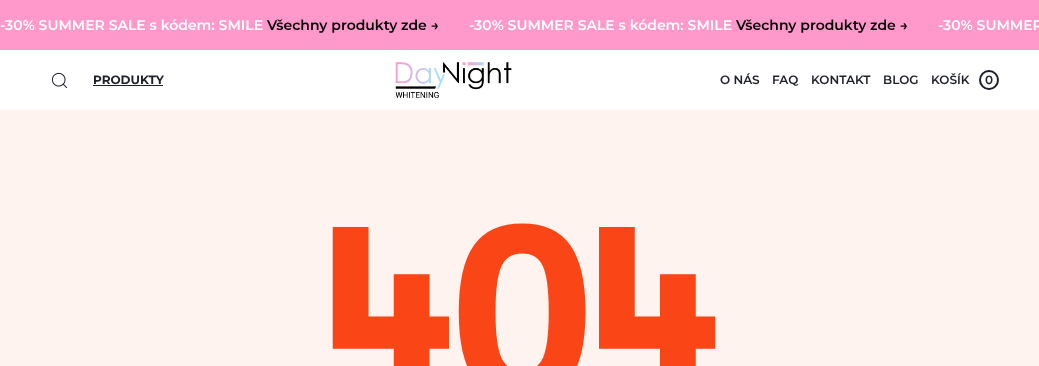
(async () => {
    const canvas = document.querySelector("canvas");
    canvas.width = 1039;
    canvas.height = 366;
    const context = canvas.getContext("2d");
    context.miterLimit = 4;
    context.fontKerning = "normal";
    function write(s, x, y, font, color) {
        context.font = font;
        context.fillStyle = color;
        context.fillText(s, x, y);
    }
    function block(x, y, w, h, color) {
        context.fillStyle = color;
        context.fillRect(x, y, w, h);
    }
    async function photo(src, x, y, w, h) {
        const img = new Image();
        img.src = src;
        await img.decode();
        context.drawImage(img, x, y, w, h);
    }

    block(0, 0, 1039, 366, "rgb(255, 255, 255)");
    block(0, 0, 1039, 50, "rgb(255, 153, 204)");
    write("-30% SUMMER SALE s kódem: SMILE", 0, 30, "600 14px Montserrat", "rgb(255, 255, 255)");
    write("Všechny produkty zde →", 267, 30, "600 14px Montserrat", "rgb(0, 0, 0)");
    write("-30% SUMMER SALE s kódem: SMILE", 469, 30, "600 14px Montserrat", "rgb(255, 255, 255)");
    write("Všechny produkty zde →", 736, 30, "600 14px Montserrat", "rgb(0, 0, 0)");
    write("-30% SUMMER", 938, 30, "600 14px Montserrat", "rgb(255, 255, 255)");
    await photo("media/1.png", 51, 72, 17, 17);
    write("PRODUKTY", 93, 84, "bold 12px Montserrat", "rgb(29, 31, 42)");
    block(93, 85, 70, 1, "rgb(29, 31, 42)");
    await photo("media/2.png", 394, 62, 118, 38);
    write("O NÁS", 720, 84, "600 12px Montserrat", "rgb(29, 31, 42)");
    write("FAQ", 772, 84, "600 12px Montserrat", "rgb(29, 31, 42)");
    write("KONTAKT", 811, 84, "600 12px Montserrat", "rgb(29, 31, 42)");
    write("BLOG", 883, 84, "600 12px Montserrat", "rgb(29, 31, 42)");
    write("KOŠÍK", 931, 84, "600 12px Montserrat", "rgb(29, 31, 42)");
    context.beginPath();
    context.arc(989, 80, 9, 0, Math.PI * 2);
    context.strokeStyle = "rgb(29, 31, 42)";
    context.lineWidth = 2;
    context.stroke();
    write("0", 985, 84, "600 12px Montserrat", "rgb(29, 31, 42)");
    block(0, 110, 1039, 256, "rgb(255, 243, 240)");
    context.letterSpacing = "-5px";
    write("404", 321, 397, "bold 250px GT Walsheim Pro", "rgb(250, 70, 22)");
})();
